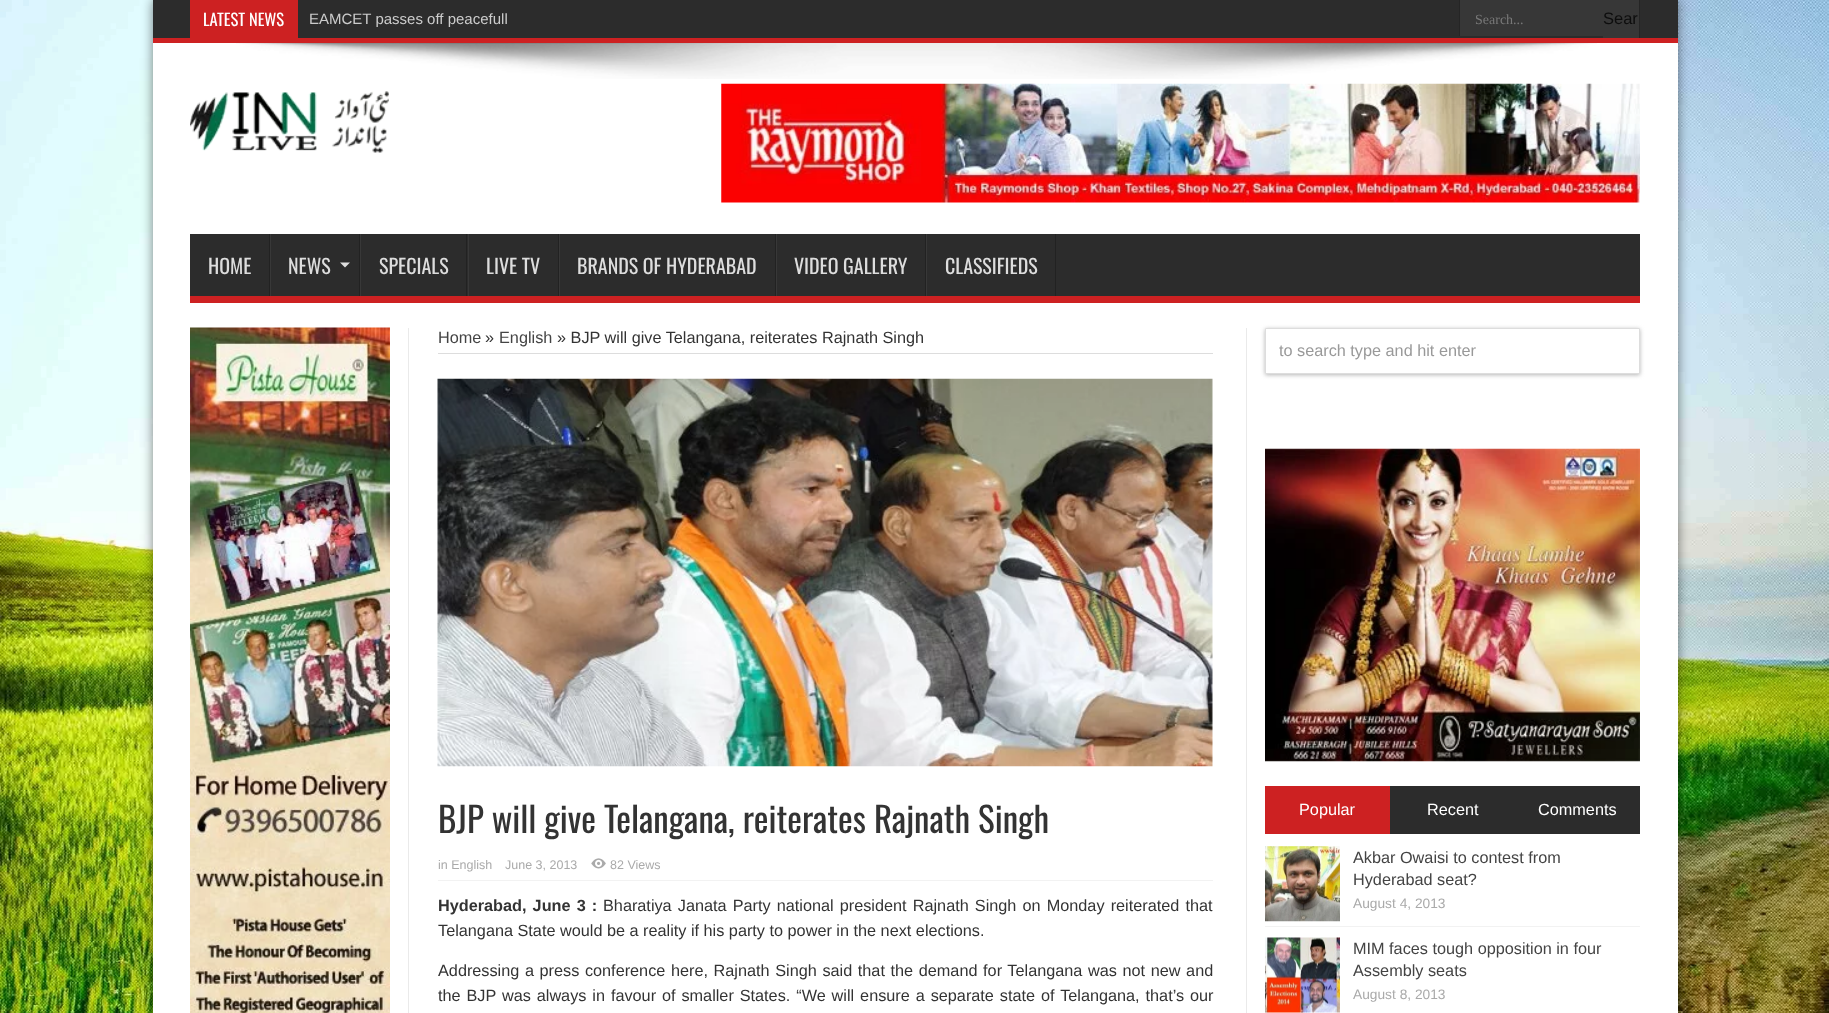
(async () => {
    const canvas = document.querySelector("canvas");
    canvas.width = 1829;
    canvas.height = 1013;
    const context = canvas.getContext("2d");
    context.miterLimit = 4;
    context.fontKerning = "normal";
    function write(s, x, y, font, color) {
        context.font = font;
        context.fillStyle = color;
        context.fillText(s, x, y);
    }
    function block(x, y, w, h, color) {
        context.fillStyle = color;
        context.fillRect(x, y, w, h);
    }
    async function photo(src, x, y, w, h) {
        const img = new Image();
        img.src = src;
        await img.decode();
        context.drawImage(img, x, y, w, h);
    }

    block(0, 0, 1829, 1013, "rgb(255, 255, 255)");
    await photo("media/1.png", 0, 0, 1829, 1013);
    context.fillStyle = "rgba(0, 0, 0, 0.5)";
    context.filter = "blur(6px)";
    context.beginPath();
    context.rect(153, 0, 1525, 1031);
    context.fill();
    context.filter = "none";
    block(153, 43, 1525, 970, "rgb(255, 255, 255)");
    block(153, 0, 1525, 38, "rgb(44, 44, 44)");
    block(153, 38, 1525, 5, "rgb(205, 33, 34)");
    block(190, 0, 108, 38, "rgb(205, 33, 34)");
    write("LATEST NEWS", 203, 26, "16.5px Oswald", "rgb(255, 255, 255)");
    write("EAMCET passes off peacefull", 309, 24, "15px Liberation Sans", "rgb(204, 204, 204)");
    block(1460, 0, 143, 36, "rgb(55, 55, 55)");
    block(1459, 0, 1, 36, "rgb(37, 37, 37)");
    write("Search...", 1475, 24, "14px Liberation Serif", "rgb(120, 120, 120)");
    block(1603, 0, 36, 38, "rgb(55, 55, 55)");
    block(1639, 0, 1, 38, "rgb(37, 37, 37)");
    write("Sear", 1603, 24, "16.5px Liberation Sans", "rgb(13, 13, 13)");
    await photo("media/2.png", 236, 43, 1361, 36);
    await photo("media/3.png", 190, 91, 199, 62);
    await photo("media/4.png", 721, 83, 919, 120);
    block(190, 234, 1450, 62, "rgb(44, 44, 44)");
    block(190, 296, 1450, 7, "rgb(205, 33, 34)");
    write("HOME", 208, 274, "20px Oswald", "rgb(221, 221, 221)");
    block(269, 234, 1, 62, "rgb(34, 34, 34)");
    block(270, 234, 1, 62, "rgb(56, 56, 56)");
    write("NEWS", 288, 274, "20px Oswald", "rgb(221, 221, 221)");
    context.beginPath();
    context.moveTo(340, 262.5);
    context.lineTo(350, 262.5);
    context.lineTo(345, 267.5);
    context.closePath();
    context.fill();
    block(359, 234, 1, 62, "rgb(34, 34, 34)");
    block(360, 234, 1, 62, "rgb(56, 56, 56)");
    write("SPECIALS", 379, 274, "20px Oswald", "rgb(221, 221, 221)");
    block(466, 234, 1, 62, "rgb(34, 34, 34)");
    block(468, 234, 1, 62, "rgb(56, 56, 56)");
    write("LIVE TV", 486, 274, "20px Oswald", "rgb(221, 221, 221)");
    block(558, 234, 1, 62, "rgb(34, 34, 34)");
    block(559, 234, 1, 62, "rgb(56, 56, 56)");
    write("BRANDS OF HYDERABAD", 577, 274, "20px Oswald", "rgb(221, 221, 221)");
    block(775, 234, 1, 62, "rgb(34, 34, 34)");
    block(776, 234, 1, 62, "rgb(56, 56, 56)");
    write("VIDEO GALLERY", 794, 274, "20px Oswald", "rgb(221, 221, 221)");
    block(925, 234, 1, 62, "rgb(34, 34, 34)");
    block(926, 234, 1, 62, "rgb(56, 56, 56)");
    write("CLASSIFIEDS", 945, 274, "20px Oswald", "rgb(221, 221, 221)");
    block(1055, 234, 1, 62, "rgb(34, 34, 34)");
    block(408, 328, 1, 685, "rgb(234, 234, 234)");
    await photo("media/5.png", 190, 327, 200, 686);
    block(438, 353, 775, 1, "rgb(221, 221, 221)");
    write("Home", 438, 343, "16.25px Liberation Sans", "rgb(68, 68, 68)");
    write("»", 485, 343, "16.25px Liberation Sans", "rgb(51, 51, 51)");
    write("English", 499, 343, "16.25px Liberation Sans", "rgb(68, 68, 68)");
    write("» BJP will give Telangana, reiterates Rajnath Singh", 557, 343, "16.25px Liberation Sans", "rgb(51, 51, 51)");
    await photo("media/6.png", 437, 378, 776, 389);
    write("BJP will give Telangana, reiterates Rajnath Singh", 438, 833, "35px Oswald", "rgb(51, 51, 51)");
    block(438, 880, 775, 1, "rgb(242, 242, 242)");
    write("in English", 438, 869, "12.5px Liberation Sans", "rgb(170, 170, 170)");
    write("June 3, 2013", 505, 869, "12.5px Liberation Sans", "rgb(170, 170, 170)");
    await photo("media/7.png", 591, 858, 15, 11);
    write("82 Views", 610, 869, "12.5px Liberation Sans", "rgb(170, 170, 170)");
    context.wordSpacing = "1.6px";
    write("Hyderabad, June 3 :", 438, 911, "bold 16.25px Liberation Sans", "rgb(51, 51, 51)");
    write("Bharatiya Janata Party national president Rajnath Singh on Monday reiterated that", 603, 911, "16.25px Liberation Sans", "rgb(51, 51, 51)");
    context.wordSpacing = "0px";
    write("Telangana State would be a reality if his party to power in the next elections.", 438, 936, "16.25px Liberation Sans", "rgb(51, 51, 51)");
    context.wordSpacing = "1.1px";
    write("Addressing a press conference here, Rajnath Singh said that the demand for Telangana was not new and", 438, 976, "16.25px Liberation Sans", "rgb(51, 51, 51)");
    context.wordSpacing = "1.4px";
    write("the BJP was always in favour of smaller States. “We will ensure a separate state of Telangana, that’s our", 438, 1001, "16.25px Liberation Sans", "rgb(51, 51, 51)");
    block(1246, 328, 1, 685, "rgb(234, 234, 234)");
    context.fillStyle = "rgb(181, 181, 181)";
    context.filter = "blur(2px)";
    context.beginPath();
    context.roundRect(1265, 329, 375, 46, 1);
    context.fill();
    context.filter = "none";
    context.fillStyle = "rgb(255, 255, 255)";
    context.beginPath();
    context.roundRect(1265.5, 328.5, 374, 45, 0.5);
    context.fill();
    context.strokeStyle = "rgb(221, 221, 221)";
    context.stroke();
    context.wordSpacing = "0px";
    write("to search type and hit enter", 1279, 356, "16.25px Liberation Sans", "rgb(153, 153, 153)");
    await photo("media/8.png", 1265, 448, 375, 314);
    block(1265, 786, 125, 48, "rgb(205, 33, 34)");
    write("Popular", 1299, 815, "16.25px Liberation Sans", "rgb(255, 255, 255)");
    block(1390, 786, 250, 48, "rgb(44, 44, 44)");
    write("Recent", 1427, 815, "16.25px Liberation Sans", "rgb(255, 255, 255)");
    write("Comments", 1538, 815, "16.25px Liberation Sans", "rgb(255, 255, 255)");
    block(1265, 926, 375, 1, "rgb(242, 242, 242)");
    await photo("media/9.png", 1265, 846, 75, 76);
    write("Akbar Owaisi to contest from", 1353, 863, "16.25px Liberation Sans", "rgb(68, 68, 68)");
    write("Hyderabad seat?", 1353, 885, "16.25px Liberation Sans", "rgb(68, 68, 68)");
    write("August 4, 2013", 1353, 908, "13.75px Liberation Sans", "rgb(170, 170, 170)");
    await photo("media/10.png", 1265, 937, 75, 76);
    write("MIM faces tough opposition in four", 1353, 954, "16.25px Liberation Sans", "rgb(68, 68, 68)");
    write("Assembly seats", 1353, 976, "16.25px Liberation Sans", "rgb(68, 68, 68)");
    write("August 8, 2013", 1353, 999, "13.75px Liberation Sans", "rgb(170, 170, 170)");
})();
